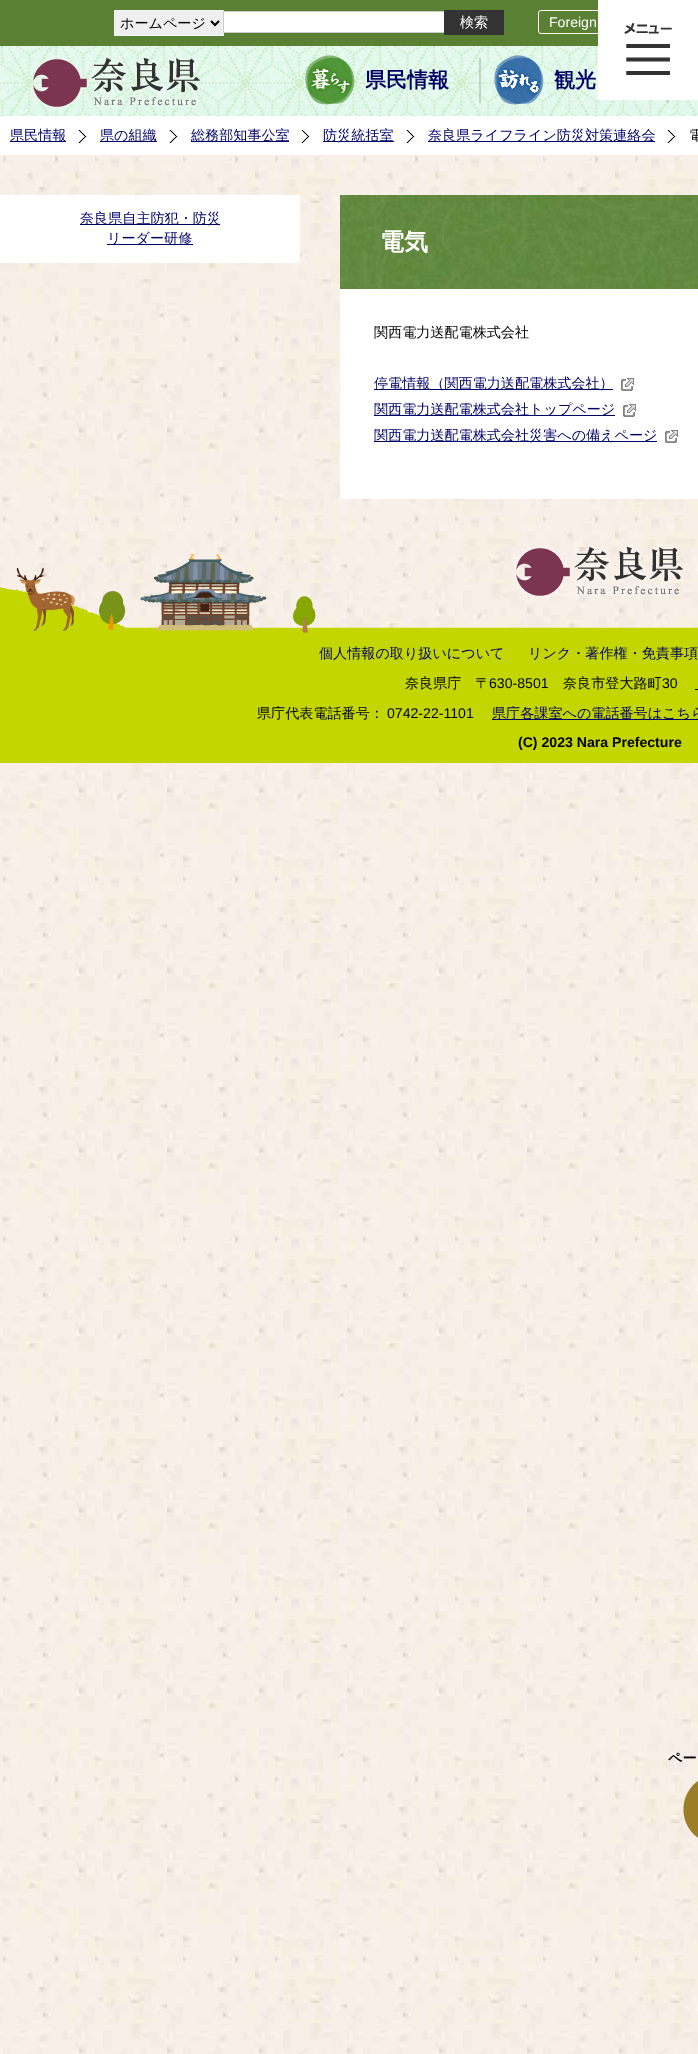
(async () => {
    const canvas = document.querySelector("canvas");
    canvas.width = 698;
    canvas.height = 2054;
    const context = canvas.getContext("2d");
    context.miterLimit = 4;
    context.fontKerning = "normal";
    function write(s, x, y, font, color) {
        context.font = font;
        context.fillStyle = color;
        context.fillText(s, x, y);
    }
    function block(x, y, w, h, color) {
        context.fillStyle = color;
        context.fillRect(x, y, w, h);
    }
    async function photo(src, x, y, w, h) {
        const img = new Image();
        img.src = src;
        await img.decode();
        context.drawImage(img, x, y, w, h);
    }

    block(0, 0, 698, 2054, "rgb(255, 255, 255)");
    await photo("media/1.png", 0, 155, 698, 1899);
    block(0, 0, 598, 46, "rgb(90, 129, 51)");
    context.fillStyle = "rgb(239, 239, 239)";
    context.beginPath();
    context.rect(114.5, 10.5, 109, 25);
    context.fill();
    context.strokeStyle = "rgb(240, 248, 255)";
    context.stroke();
    context.beginPath();
    context.moveTo(211, 21);
    context.lineTo(215, 25);
    context.lineTo(219, 21);
    context.strokeStyle = "rgb(0, 0, 0)";
    context.lineWidth = 2;
    context.stroke();
    write("ホームページ", 120, 28, "500 14.1px WenQuanYi Zen Hei", "rgb(0, 0, 0)");
    context.fillStyle = "rgb(255, 255, 255)";
    context.beginPath();
    context.rect(223.5, 11.5, 221, 21);
    context.fill();
    context.strokeStyle = "rgb(204, 204, 204)";
    context.lineWidth = 1;
    context.stroke();
    block(444, 10, 60, 25, "rgb(51, 51, 51)");
    write("検索", 460, 27, "500 14.1px WenQuanYi Zen Hei", "rgb(255, 255, 255)");
    context.beginPath();
    context.roundRect(538.5, 10.5, 135, 23, 2.5);
    context.strokeStyle = "rgb(255, 255, 255)";
    context.stroke();
    write("Foreign", 549, 27, "14.1px Liberation Sans", "rgb(255, 255, 255)");
    await photo("media/3.png", 0, 46, 698, 70);
    await photo("media/2.png", 31, 56, 171, 53);
    await photo("media/4.png", 305, 55, 50, 50);
    write("県民情報", 365, 87, "bold 21px WenQuanYi Zen Hei", "rgb(0, 0, 102)");
    block(479, 58, 2, 45, "rgba(104, 104, 104, 0.25)");
    await photo("media/5.png", 494, 55, 50, 50);
    write("観光", 554, 87, "bold 21px WenQuanYi Zen Hei", "rgb(0, 0, 102)");
    block(667, 100, 2, 3, "rgba(104, 104, 104, 0.25)");
    await photo("media/6.png", 598, 0, 100, 100);
    block(10, 141, 56, 1, "rgb(0, 0, 102)");
    write("県民情報", 10, 140, "500 14.1px WenQuanYi Zen Hei", "rgb(0, 0, 102)");
    await photo("media/7.png", 78, 130, 9, 13);
    block(100, 141, 57, 1, "rgb(0, 0, 102)");
    write("県の組織", 100, 140, "500 14.1px WenQuanYi Zen Hei", "rgb(0, 0, 102)");
    await photo("media/7.png", 169, 130, 9, 13);
    block(191, 141, 98, 1, "rgb(0, 0, 102)");
    write("総務部知事公室", 191, 140, "500 14.1px WenQuanYi Zen Hei", "rgb(0, 0, 102)");
    await photo("media/7.png", 301, 130, 9, 13);
    block(323, 141, 71, 1, "rgb(0, 0, 102)");
    write("防災統括室", 323, 140, "500 14.1px WenQuanYi Zen Hei", "rgb(0, 0, 102)");
    await photo("media/7.png", 406, 130, 9, 13);
    block(428, 141, 227, 1, "rgb(0, 0, 102)");
    write("奈良県ライフライン防災対策連絡会", 428, 140, "500 14.1px WenQuanYi Zen Hei", "rgb(0, 0, 102)");
    await photo("media/7.png", 667, 130, 9, 13);
    write("電", 689, 140, "500 14.1px WenQuanYi Zen Hei", "rgb(0, 0, 0)");
    block(0, 195, 300, 68, "rgb(255, 255, 255)");
    block(80, 224, 140, 1, "rgb(0, 0, 102)");
    write("奈良県自主防犯・防災", 80, 223, "500 14.1px WenQuanYi Zen Hei", "rgb(0, 0, 102)");
    block(107, 244, 86, 1, "rgb(0, 0, 102)");
    write("リーダー研修", 107, 243, "500 14.1px WenQuanYi Zen Hei", "rgb(0, 0, 102)");
    block(340, 289, 358, 210, "rgb(255, 255, 255)");
    await photo("media/8.png", 340, 195, 358, 94);
    write("電気", 380, 250, "bold 24px WenQuanYi Zen Hei", "rgb(255, 255, 255)");
    write("関西電力送配電株式会社", 374, 337, "500 14.1px WenQuanYi Zen Hei", "rgb(0, 0, 0)");
    block(374, 389, 239, 1, "rgb(0, 0, 102)");
    write("停電情報（関西電力送配電株式会社）", 374, 388, "500 14.1px WenQuanYi Zen Hei", "rgb(0, 0, 102)");
    await photo("media/9.png", 621, 378, 13, 13);
    block(374, 415, 241, 1, "rgb(0, 0, 102)");
    write("関西電力送配電株式会社トップページ", 374, 414, "500 14.1px WenQuanYi Zen Hei", "rgb(0, 0, 102)");
    await photo("media/9.png", 623, 404, 13, 13);
    block(374, 441, 283, 1, "rgb(0, 0, 102)");
    write("関西電力送配電株式会社災害への備えページ", 374, 440, "500 14.1px WenQuanYi Zen Hei", "rgb(0, 0, 102)");
    await photo("media/9.png", 665, 430, 13, 13);
    await photo("media/11.png", 0, 553, 698, 81);
    await photo("media/10.png", 514, 545, 171, 53);
    block(0, 634, 698, 129, "rgb(195, 214, 0)");
    write("個人情報の取り扱いについて", 319, 658, "500 14.1px WenQuanYi Zen Hei", "rgb(0, 0, 102)");
    write("リンク・著作権・免責事項", 528, 658, "500 14.1px WenQuanYi Zen Hei", "rgb(0, 0, 102)");
    write("奈良県庁　〒", 405, 688, "500 14.1px WenQuanYi Zen Hei", "rgb(0, 0, 0)");
    write("630-8501", 489, 688, "14.1px Liberation Sans", "rgb(0, 0, 0)");
    write("奈良市登大路町", 563, 688, "500 14.1px WenQuanYi Zen Hei", "rgb(0, 0, 0)");
    write("30", 662, 688, "14.1px Liberation Sans", "rgb(0, 0, 0)");
    block(695, 689, 3, 1, "rgb(0, 0, 102)");
    write("県庁代表電話番号：", 257, 718, "500 14.1px WenQuanYi Zen Hei", "rgb(0, 0, 0)");
    write("0742-22-1101", 387, 718, "14.1px Liberation Sans", "rgb(0, 0, 0)");
    block(492, 719, 206, 1, "rgb(0, 0, 102)");
    write("県庁各課室への電話番号はこちら", 492, 718, "500 14.1px WenQuanYi Zen Hei", "rgb(0, 0, 102)");
    write("(C) 2023 Nara Prefecture", 518, 747, "bold 14.1px Liberation Sans", "rgb(0, 0, 0)");
    await photo("media/12.png", 683, 1781, 15, 57);
    write("ペー", 668, 1763, "bold 14.1px WenQuanYi Zen Hei", "rgb(0, 0, 0)");
})();
